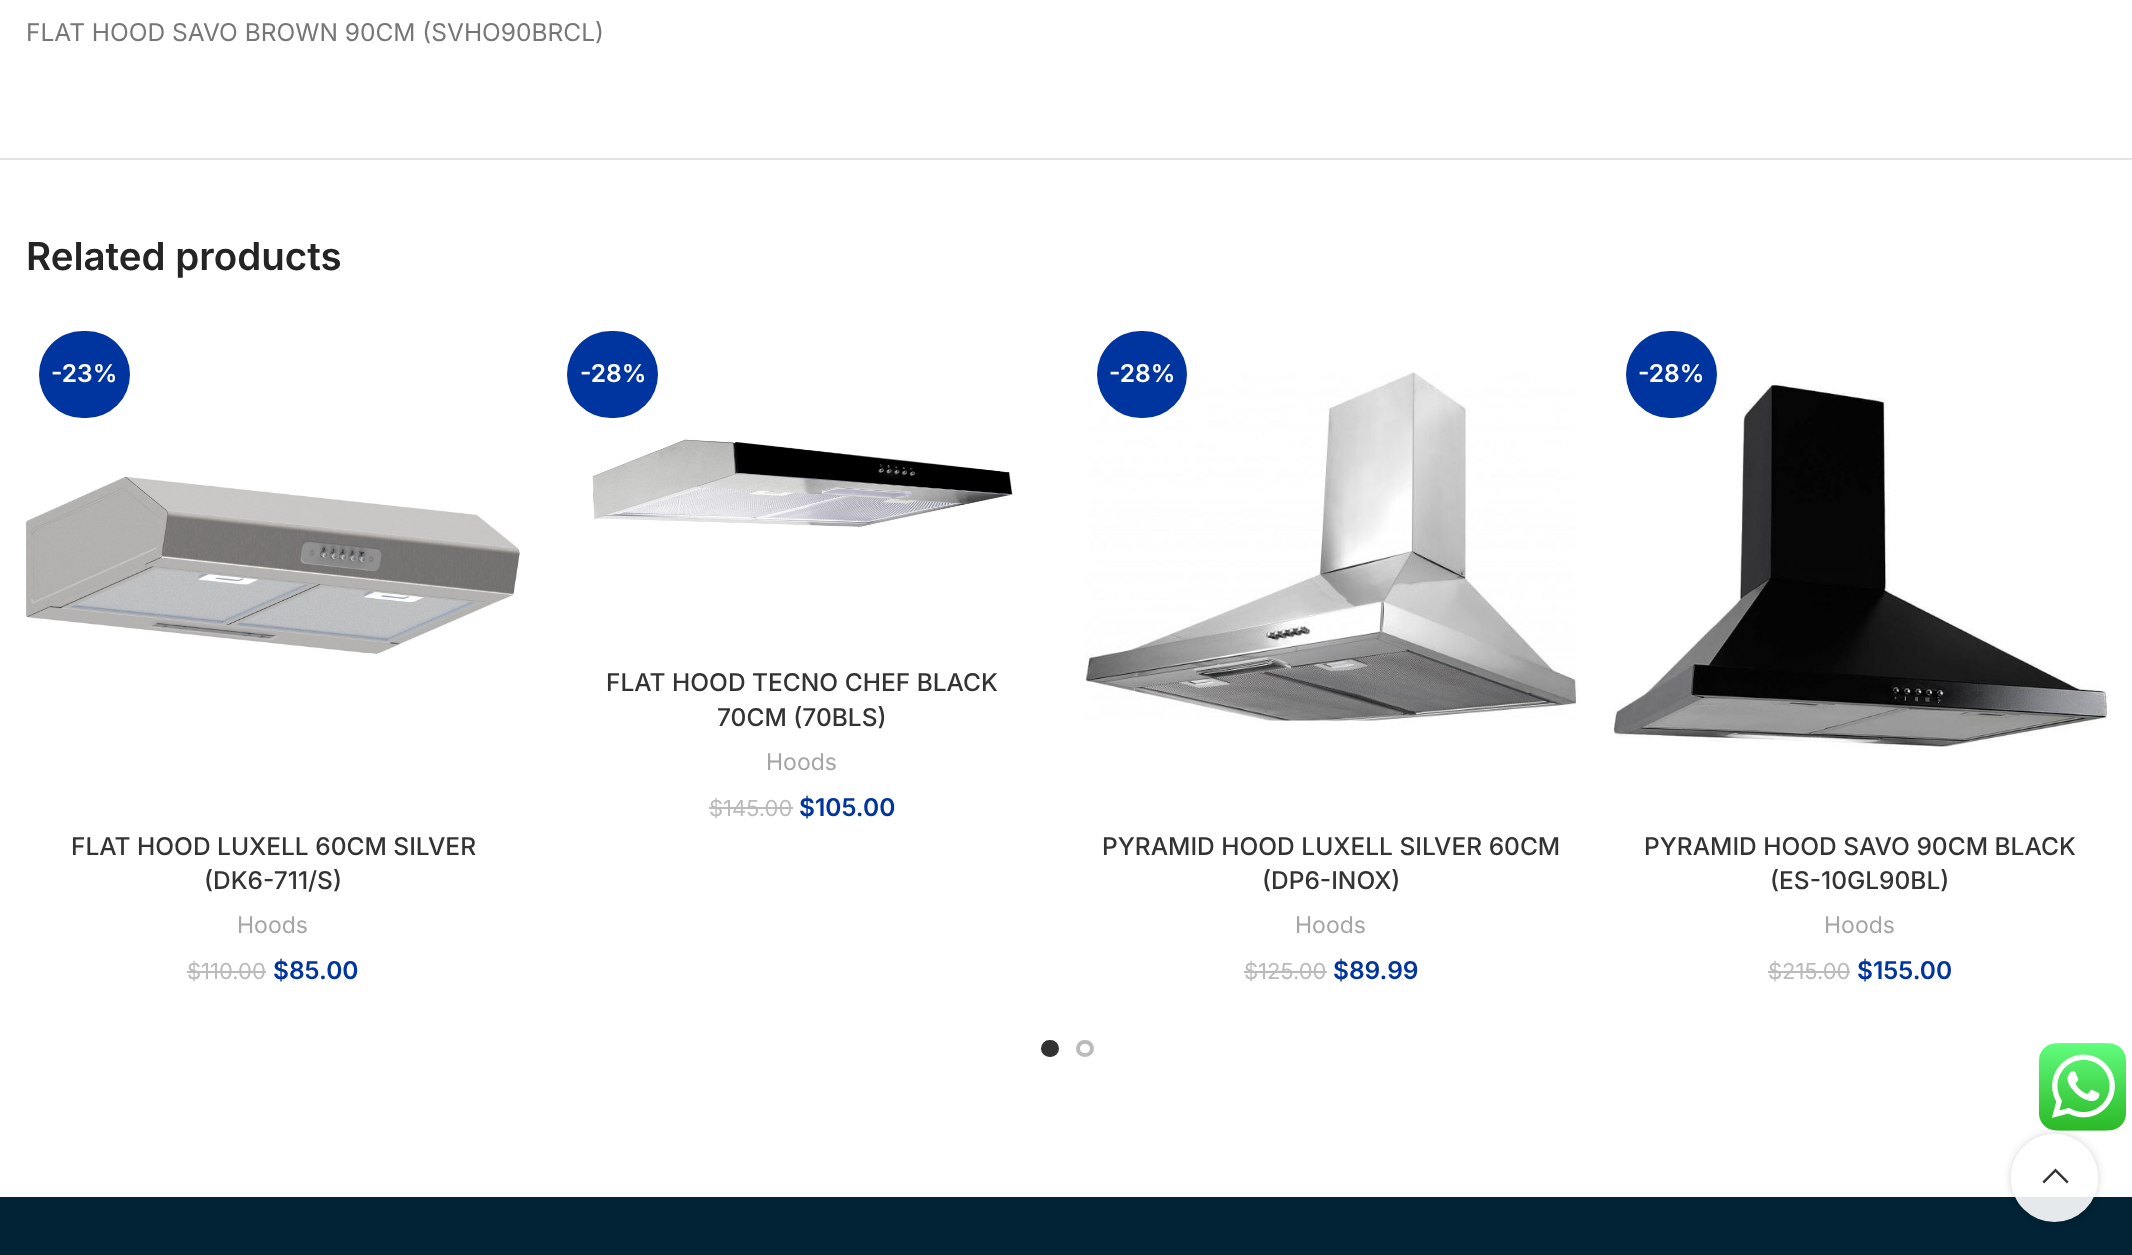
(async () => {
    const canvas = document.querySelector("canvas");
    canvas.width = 2132;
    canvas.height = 1255;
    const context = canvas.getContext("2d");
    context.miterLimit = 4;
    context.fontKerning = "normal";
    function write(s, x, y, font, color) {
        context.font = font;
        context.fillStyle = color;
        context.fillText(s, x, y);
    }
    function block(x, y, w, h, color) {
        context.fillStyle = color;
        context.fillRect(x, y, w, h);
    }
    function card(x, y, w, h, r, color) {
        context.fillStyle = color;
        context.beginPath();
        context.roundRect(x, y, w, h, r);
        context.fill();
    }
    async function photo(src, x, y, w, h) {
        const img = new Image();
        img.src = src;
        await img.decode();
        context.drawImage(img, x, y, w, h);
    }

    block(0, 0, 2132, 1255, "rgb(255, 255, 255)");
    block(0, 158, 2132, 2, "rgb(228, 228, 228)");
    write("FLAT HOOD SAVO BROWN 90CM (SVHO90BRCL)", 26, 41, "24.5px Inter", "rgb(119, 119, 119)");
    write("Related products", 26, 270, "600 38.5px Inter", "rgb(36, 36, 36)");
    card(39, 331, 91, 87, 43.5, "rgb(0, 52, 158)");
    write("-23%", 51, 382, "600 24.5px Inter", "rgb(255, 255, 255)");
    await photo("media/1.png", 26, 476, 494, 178);
    write("FLAT HOOD LUXELL 60CM SILVER", 71, 855, "500 24.5px Inter", "rgb(51, 51, 51)");
    write("(DK6-711/S)", 204, 889, "500 24.5px Inter", "rgb(51, 51, 51)");
    write("Hoods", 237, 933, "23px Inter", "rgb(165, 165, 165)");
    write("$110.00", 187, 979, "22px Inter", "rgb(187, 187, 187)");
    block(187, 971, 79, 2, "rgb(187, 187, 187)");
    write("$85.00", 273, 979, "600 24.5px Inter", "rgb(0, 52, 158)");
    card(567, 331, 91, 87, 43.5, "rgb(0, 52, 158)");
    write("-28%", 580, 382, "600 24.5px Inter", "rgb(255, 255, 255)");
    await photo("media/2.png", 592, 438, 421, 89);
    write("FLAT HOOD TECNO CHEF BLACK", 606, 691, "500 24.5px Inter", "rgb(51, 51, 51)");
    write("70CM (70BLS)", 717, 726, "500 24.5px Inter", "rgb(51, 51, 51)");
    write("Hoods", 766, 770, "23px Inter", "rgb(165, 165, 165)");
    write("$145.00", 709, 816, "22px Inter", "rgb(187, 187, 187)");
    block(709, 807, 84, 2, "rgb(187, 187, 187)");
    write("$105.00", 799, 816, "600 24.5px Inter", "rgb(0, 52, 158)");
    await photo("media/3.png", 1085, 371, 494, 353);
    card(1097, 331, 90, 87, 43.5, "rgb(0, 52, 158)");
    write("-28%", 1109, 382, "600 24.5px Inter", "rgb(255, 255, 255)");
    write("PYRAMID HOOD LUXELL SILVER 60CM", 1102, 855, "500 24.5px Inter", "rgb(51, 51, 51)");
    write("(DP6-INOX)", 1262, 889, "500 24.5px Inter", "rgb(51, 51, 51)");
    write("Hoods", 1295, 933, "23px Inter", "rgb(165, 165, 165)");
    write("$125.00", 1244, 979, "22px Inter", "rgb(187, 187, 187)");
    block(1244, 971, 83, 2, "rgb(187, 187, 187)");
    write("$89.99", 1333, 979, "600 24.5px Inter", "rgb(0, 52, 158)");
    await photo("media/4.png", 1614, 381, 493, 366);
    card(1626, 331, 91, 87, 43.5, "rgb(0, 52, 158)");
    write("-28%", 1638, 382, "600 24.5px Inter", "rgb(255, 255, 255)");
    write("PYRAMID HOOD SAVO 90CM BLACK", 1644, 855, "500 24.5px Inter", "rgb(51, 51, 51)");
    write("(ES-10GL90BL)", 1770, 889, "500 24.5px Inter", "rgb(51, 51, 51)");
    write("Hoods", 1824, 933, "23px Inter", "rgb(165, 165, 165)");
    write("$215.00", 1768, 979, "22px Inter", "rgb(187, 187, 187)");
    block(1768, 971, 82, 2, "rgb(187, 187, 187)");
    write("$155.00", 1857, 979, "600 24.5px Inter", "rgb(0, 52, 158)");
    context.fillStyle = "rgb(51, 51, 51)";
    context.beginPath();
    context.roundRect(1043, 1042, 14, 13, 6.5);
    context.fill();
    context.strokeStyle = "rgb(51, 51, 51)";
    context.lineWidth = 4;
    context.stroke();
    context.beginPath();
    context.roundRect(1078, 1042, 14, 13, 6.5);
    context.strokeStyle = "rgb(187, 187, 187)";
    context.stroke();
    block(0, 1197, 2132, 58, "rgb(2, 35, 53)");
    context.save();
    context.beginPath();
    context.moveTo(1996, 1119);
    context.lineTo(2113, 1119);
    context.lineTo(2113, 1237);
    context.lineTo(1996, 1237);
    context.closePath();
    context.moveTo(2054.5, 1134);
    context.bezierCurveTo(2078.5, 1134, 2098, 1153.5, 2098, 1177.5);
    context.lineTo(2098, 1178.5);
    context.bezierCurveTo(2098, 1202.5, 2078.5, 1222, 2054.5, 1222);
    context.bezierCurveTo(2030.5, 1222, 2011, 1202.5, 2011, 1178.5);
    context.lineTo(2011, 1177.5);
    context.bezierCurveTo(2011, 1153.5, 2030.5, 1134, 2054.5, 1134);
    context.closePath();
    context.clip("evenodd");
    context.fillStyle = "rgba(0, 0, 0, 0.17)";
    context.filter = "blur(4.5px)";
    context.beginPath();
    context.roundRect(2011, 1134, 87, 88, 43.5);
    context.fill();
    context.filter = "none";
    context.restore();
    await photo("media/5.png", 2039, 1043, 87, 88);
    card(2011, 1134, 87, 88, 43.5, "rgba(255, 255, 255, 0.9)");
    context.fillStyle = "rgb(51, 51, 51)";
    context.beginPath();
    context.moveTo(2067, 1183.5);
    context.lineTo(2068.5, 1181.5);
    context.lineTo(2055.5, 1168.5);
    context.lineTo(2042.5, 1181.5);
    context.lineTo(2044, 1183.5);
    context.lineTo(2055.5, 1172);
    context.closePath();
    context.fill();
})();
